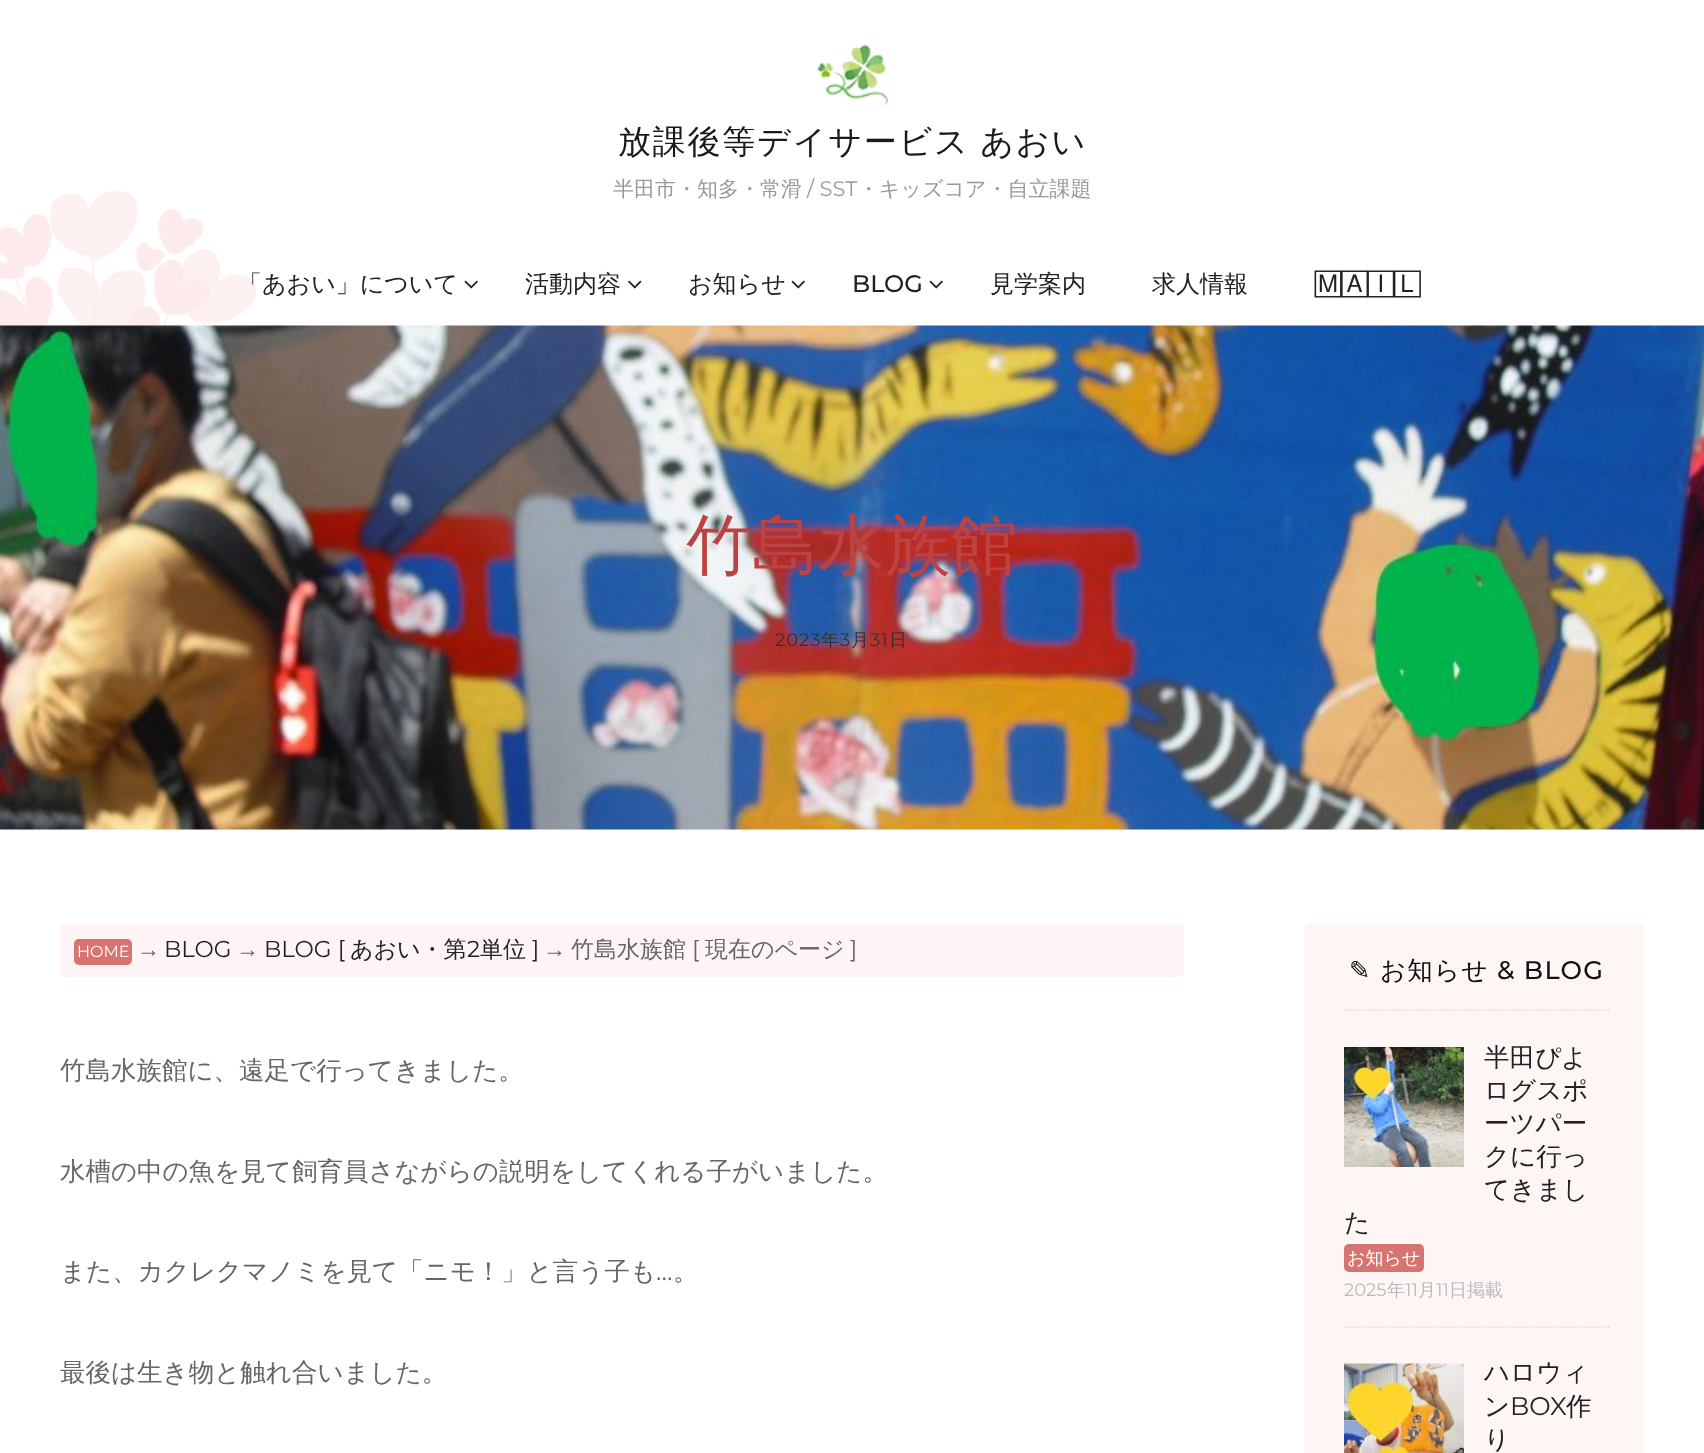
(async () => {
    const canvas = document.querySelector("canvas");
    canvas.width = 1704;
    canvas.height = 1453;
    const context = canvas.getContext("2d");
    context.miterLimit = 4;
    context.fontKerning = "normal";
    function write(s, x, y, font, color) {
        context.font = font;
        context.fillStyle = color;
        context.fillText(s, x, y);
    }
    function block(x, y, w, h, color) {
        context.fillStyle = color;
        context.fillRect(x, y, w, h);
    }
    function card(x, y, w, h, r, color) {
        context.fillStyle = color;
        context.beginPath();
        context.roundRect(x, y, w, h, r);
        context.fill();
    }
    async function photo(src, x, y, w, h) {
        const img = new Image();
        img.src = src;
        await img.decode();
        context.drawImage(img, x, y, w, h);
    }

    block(0, 0, 1704, 1453, "rgb(255, 255, 255)");
    await photo("media/1.png", 0, 190, 257, 136);
    await photo("media/2.png", 817, 45, 71, 60);
    context.letterSpacing = "1.7px";
    context.wordSpacing = "-1px";
    write("放課後等デイサービス あおい", 618, 153, "500 33.1px WenQuanYi Zen Hei", "rgb(26, 26, 26)");
    context.letterSpacing = "0px";
    context.wordSpacing = "0px";
    write("半田市・知多・常滑", 613, 196, "500 21px WenQuanYi Zen Hei", "rgb(153, 153, 153)");
    write("/ SST", 807, 196, "21px Montserrat", "rgb(153, 153, 153)");
    write("・キッズコア・自立課題", 858, 196, "500 21px WenQuanYi Zen Hei", "rgb(153, 153, 153)");
    write("「あおい」について", 238, 292, "500 24px WenQuanYi Zen Hei", "rgb(34, 34, 34)");
    await photo("media/3.png", 464, 280, 14, 9);
    write("活動内容", 525, 292, "500 24px WenQuanYi Zen Hei", "rgb(34, 34, 34)");
    await photo("media/4.png", 628, 280, 14, 9);
    write("お知らせ", 688, 292, "500 24px WenQuanYi Zen Hei", "rgb(34, 34, 34)");
    await photo("media/3.png", 791, 280, 14, 9);
    write("BLOG", 852, 292, "500 24px Montserrat", "rgb(34, 34, 34)");
    await photo("media/3.png", 929, 280, 14, 9);
    write("見学案内", 990, 292, "500 24px WenQuanYi Zen Hei", "rgb(34, 34, 34)");
    write("求人情報", 1152, 292, "500 24px WenQuanYi Zen Hei", "rgb(34, 34, 34)");
    write("🄼🄰🄸🄻", 1315, 292, "24px FreeSans", "rgb(34, 34, 34)");
    block(0, 829, 1704, 1, "rgb(250, 250, 250)");
    await photo("media/5.png", 0, 325, 1704, 505);
    write("竹島水族館", 686, 568, "500 66.25px WenQuanYi Zen Hei", "rgb(188, 67, 66)");
    context.letterSpacing = "1px";
    write("2023", 775, 646, "18px Montserrat", "rgb(51, 51, 51)");
    write("年", 821, 646, "500 18px WenQuanYi Zen Hei", "rgb(51, 51, 51)");
    write("3", 840, 646, "18px Montserrat", "rgb(51, 51, 51)");
    write("月", 851, 646, "500 18px WenQuanYi Zen Hei", "rgb(51, 51, 51)");
    write("31", 870, 646, "18px Montserrat", "rgb(51, 51, 51)");
    write("日", 889, 646, "500 18px WenQuanYi Zen Hei", "rgb(51, 51, 51)");
    card(60, 924, 1124, 53, 5, "rgb(254, 244, 245)");
    card(74, 939, 58, 26, 5, "rgb(213, 116, 112)");
    context.letterSpacing = "0px";
    write("HOME", 77, 957, "16px Montserrat", "rgb(255, 255, 255)");
    write("→", 137, 957, "23px Liberation Sans", "rgb(102, 102, 102)");
    write("BLOG", 164, 957, "23px Montserrat", "rgb(34, 34, 34)");
    write("→", 236, 957, "23px Liberation Sans", "rgb(102, 102, 102)");
    write("BLOG [", 264, 957, "23px Montserrat", "rgb(34, 34, 34)");
    write("あおい・第", 350, 957, "500 23px WenQuanYi Zen Hei", "rgb(34, 34, 34)");
    write("2", 467, 957, "23px Montserrat", "rgb(34, 34, 34)");
    write("単位", 480, 957, "500 23px WenQuanYi Zen Hei", "rgb(34, 34, 34)");
    write("]", 532, 957, "23px Montserrat", "rgb(34, 34, 34)");
    write("→", 543, 957, "23px Liberation Sans", "rgb(102, 102, 102)");
    write("竹島水族館", 571, 957, "500 23px WenQuanYi Zen Hei", "rgb(102, 102, 102)");
    write("[", 692, 957, "23px Montserrat", "rgb(102, 102, 102)");
    write("現在のページ", 705, 957, "500 23px WenQuanYi Zen Hei", "rgb(102, 102, 102)");
    write("]", 850, 957, "23px Montserrat", "rgb(102, 102, 102)");
    write("竹島水族館に、遠足で行ってきました。", 60, 1079, "500 25.5px WenQuanYi Zen Hei", "rgb(102, 102, 102)");
    write("水槽の中の魚を見て飼育員さながらの説明をしてくれる子がいました。", 60, 1180, "500 25.5px WenQuanYi Zen Hei", "rgb(102, 102, 102)");
    write("また、カクレクマノミを見て「ニモ！」と言う子も", 60, 1280, "500 25.5px WenQuanYi Zen Hei", "rgb(102, 102, 102)");
    write("…", 656, 1280, "25.5px Montserrat", "rgb(102, 102, 102)");
    write("。", 673, 1280, "500 25.5px WenQuanYi Zen Hei", "rgb(102, 102, 102)");
    write("最後は生き物と触れ合いました。", 60, 1381, "500 25.5px WenQuanYi Zen Hei", "rgb(102, 102, 102)");
    card(1304, 924, 340, 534, 5, "rgb(254, 245, 245)");
    context.letterSpacing = "1.25px";
    write("✎", 1349, 979, "25.5px DejaVu Sans", "rgb(17, 17, 17)");
    write("お知らせ", 1380, 979, "500 25.5px WenQuanYi Zen Hei", "rgb(17, 17, 17)");
    write("& BLOG", 1497, 979, "500 25.5px Montserrat", "rgb(17, 17, 17)");
    context.beginPath();
    context.moveTo(1344, 1010);
    context.lineTo(1609.5, 1010);
    context.strokeStyle = "rgb(243, 212, 200)";
    context.lineWidth = 1.5;
    context.setLineDash([1.5, 1.5]);
    context.stroke();
    context.letterSpacing = "0px";
    write("半田ぴよ", 1484, 1066, "500 25.5px WenQuanYi Zen Hei", "rgb(34, 34, 34)");
    write("ログスポ", 1484, 1099, "500 25.5px WenQuanYi Zen Hei", "rgb(34, 34, 34)");
    write("ーツパー", 1484, 1132, "500 25.5px WenQuanYi Zen Hei", "rgb(34, 34, 34)");
    write("クに行っ", 1484, 1165, "500 25.5px WenQuanYi Zen Hei", "rgb(34, 34, 34)");
    write("てきまし", 1484, 1198, "500 25.5px WenQuanYi Zen Hei", "rgb(34, 34, 34)");
    write("た", 1344, 1231, "500 25.5px WenQuanYi Zen Hei", "rgb(34, 34, 34)");
    await photo("media/6.png", 1344, 1047, 120, 120);
    card(1344, 1244, 80, 28, 5, "rgb(213, 116, 112)");
    write("お知らせ", 1347, 1264, "500 18px WenQuanYi Zen Hei", "rgb(255, 255, 255)");
    write("2025", 1344, 1296, "18px Montserrat", "rgb(187, 187, 187)");
    write("年", 1387, 1296, "500 18px WenQuanYi Zen Hei", "rgb(187, 187, 187)");
    write("11", 1405, 1296, "18px Montserrat", "rgb(187, 187, 187)");
    write("月", 1418, 1296, "500 18px WenQuanYi Zen Hei", "rgb(187, 187, 187)");
    write("11", 1436, 1296, "18px Montserrat", "rgb(187, 187, 187)");
    write("日掲載", 1449, 1296, "500 18px WenQuanYi Zen Hei", "rgb(187, 187, 187)");
    context.beginPath();
    context.moveTo(1344, 1327);
    context.lineTo(1609.5, 1327);
    context.stroke();
    await photo("media/7.png", 1344, 1363, 120, 90);
    write("ハロウィ", 1484, 1381, "500 25.5px WenQuanYi Zen Hei", "rgb(34, 34, 34)");
    write("ン", 1484, 1415, "500 25.5px WenQuanYi Zen Hei", "rgb(34, 34, 34)");
    write("BOX", 1510, 1415, "25.5px Montserrat", "rgb(34, 34, 34)");
    write("作", 1566, 1415, "500 25.5px WenQuanYi Zen Hei", "rgb(34, 34, 34)");
    write("り", 1484, 1448, "500 25.5px WenQuanYi Zen Hei", "rgb(34, 34, 34)");
})();
